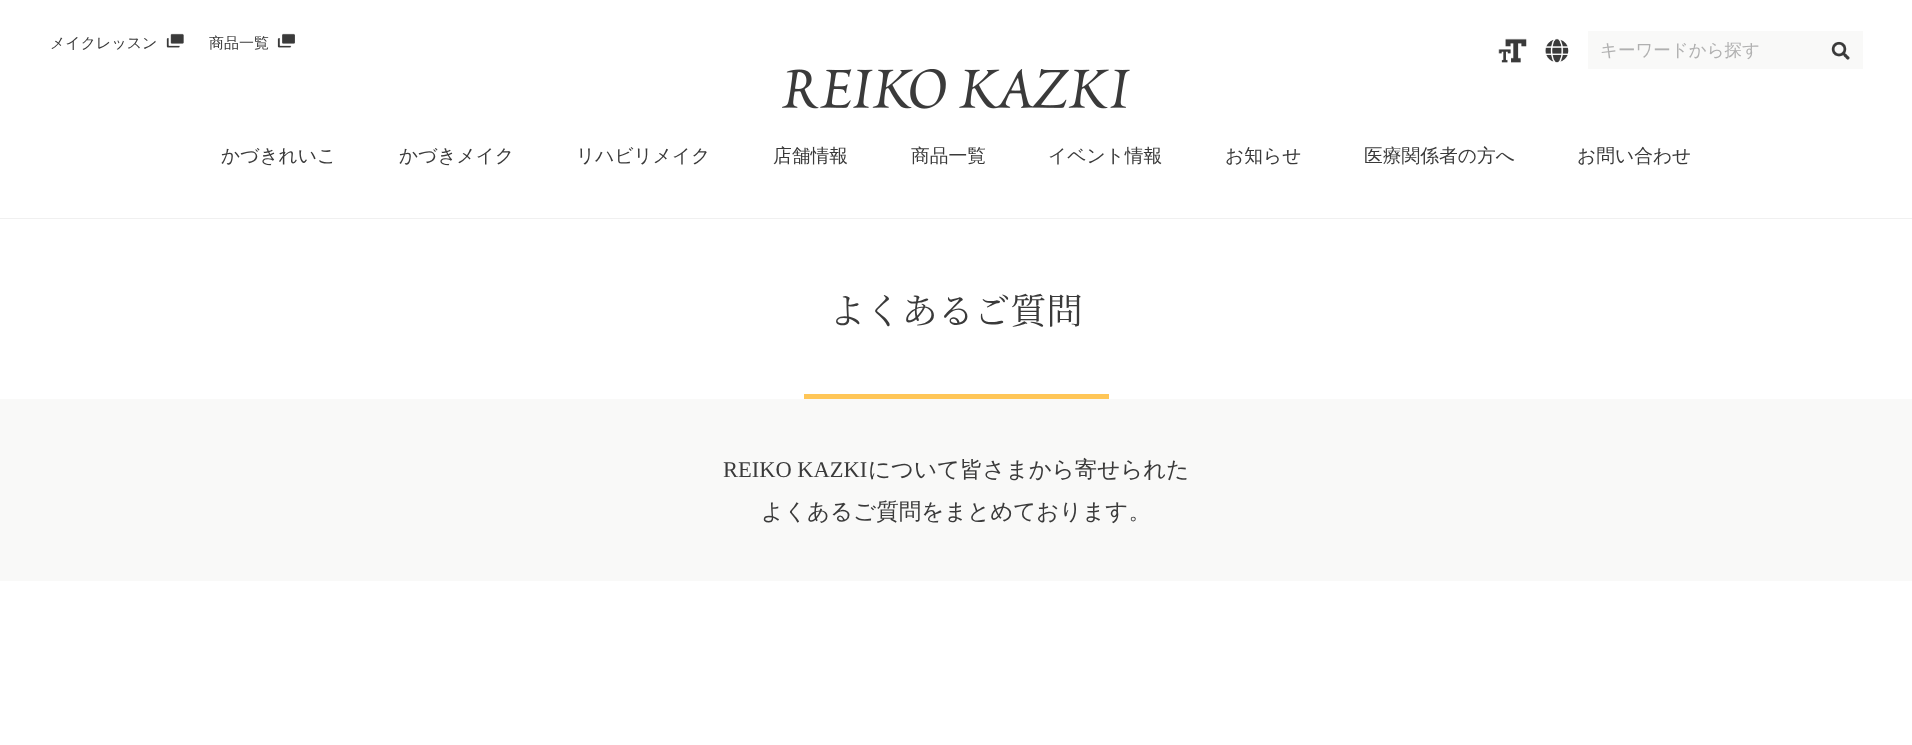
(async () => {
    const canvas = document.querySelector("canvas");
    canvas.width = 1912;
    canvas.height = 745;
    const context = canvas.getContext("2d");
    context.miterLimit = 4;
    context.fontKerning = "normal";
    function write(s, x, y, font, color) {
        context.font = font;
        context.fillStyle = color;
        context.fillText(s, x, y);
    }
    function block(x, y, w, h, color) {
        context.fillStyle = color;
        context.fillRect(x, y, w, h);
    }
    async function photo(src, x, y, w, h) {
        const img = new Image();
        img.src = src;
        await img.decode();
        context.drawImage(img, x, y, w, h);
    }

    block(0, 0, 1912, 745, "rgb(255, 255, 255)");
    block(0, 218, 1912, 1, "rgb(240, 240, 240)");
    write("メイクレッスン", 50, 48, "500 15px WenQuanYi Zen Hei", "rgb(58, 58, 58)");
    await photo("media/1.png", 166, 33, 18, 15);
    write("商品一覧", 209, 48, "500 15px WenQuanYi Zen Hei", "rgb(58, 58, 58)");
    await photo("media/2.png", 277, 33, 18, 15);
    await photo("media/3.png", 1498, 38, 29, 25);
    await photo("media/4.png", 1545, 38, 24, 25);
    block(1588, 31, 275, 38, "rgb(249, 249, 248)");
    write("キーワードから探す", 1600, 56, "500 17.5px WenQuanYi Zen Hei", "rgb(176, 176, 176)");
    await photo("media/5.png", 1831, 41, 19, 19);
    await photo("media/6.png", 782, 69, 348, 40);
    write("かづきれいこ", 221, 162, "500 18.75px WenQuanYi Zen Hei", "rgb(58, 58, 58)");
    write("かづきメイク", 399, 162, "500 18.75px WenQuanYi Zen Hei", "rgb(58, 58, 58)");
    write("リハビリメイク", 576, 162, "500 18.75px WenQuanYi Zen Hei", "rgb(58, 58, 58)");
    write("店舗情報", 773, 162, "500 18.75px WenQuanYi Zen Hei", "rgb(58, 58, 58)");
    write("商品一覧", 911, 162, "500 18.75px WenQuanYi Zen Hei", "rgb(58, 58, 58)");
    write("イベント情報", 1048, 162, "500 18.75px WenQuanYi Zen Hei", "rgb(58, 58, 58)");
    write("お知らせ", 1225, 162, "500 18.75px WenQuanYi Zen Hei", "rgb(58, 58, 58)");
    write("医療関係者の方へ", 1364, 162, "500 18.75px WenQuanYi Zen Hei", "rgb(58, 58, 58)");
    write("お問い合わせ", 1577, 162, "500 18.75px WenQuanYi Zen Hei", "rgb(58, 58, 58)");
    write("よくあるご質問", 829, 324, "200 36.25px Noto Serif JP", "rgb(58, 58, 58)");
    block(804, 394, 305, 5, "rgb(255, 198, 87)");
    block(0, 399, 1912, 182, "rgb(249, 249, 248)");
    write("REIKO KAZKI", 723, 477, "22.5px Liberation Serif", "rgb(58, 58, 58)");
    write("について皆さまから寄せられた", 868, 477, "500 22.5px WenQuanYi Zen Hei", "rgb(58, 58, 58)");
    write("よくあるご質問をまとめております。", 761, 519, "500 22.5px WenQuanYi Zen Hei", "rgb(58, 58, 58)");
})();
